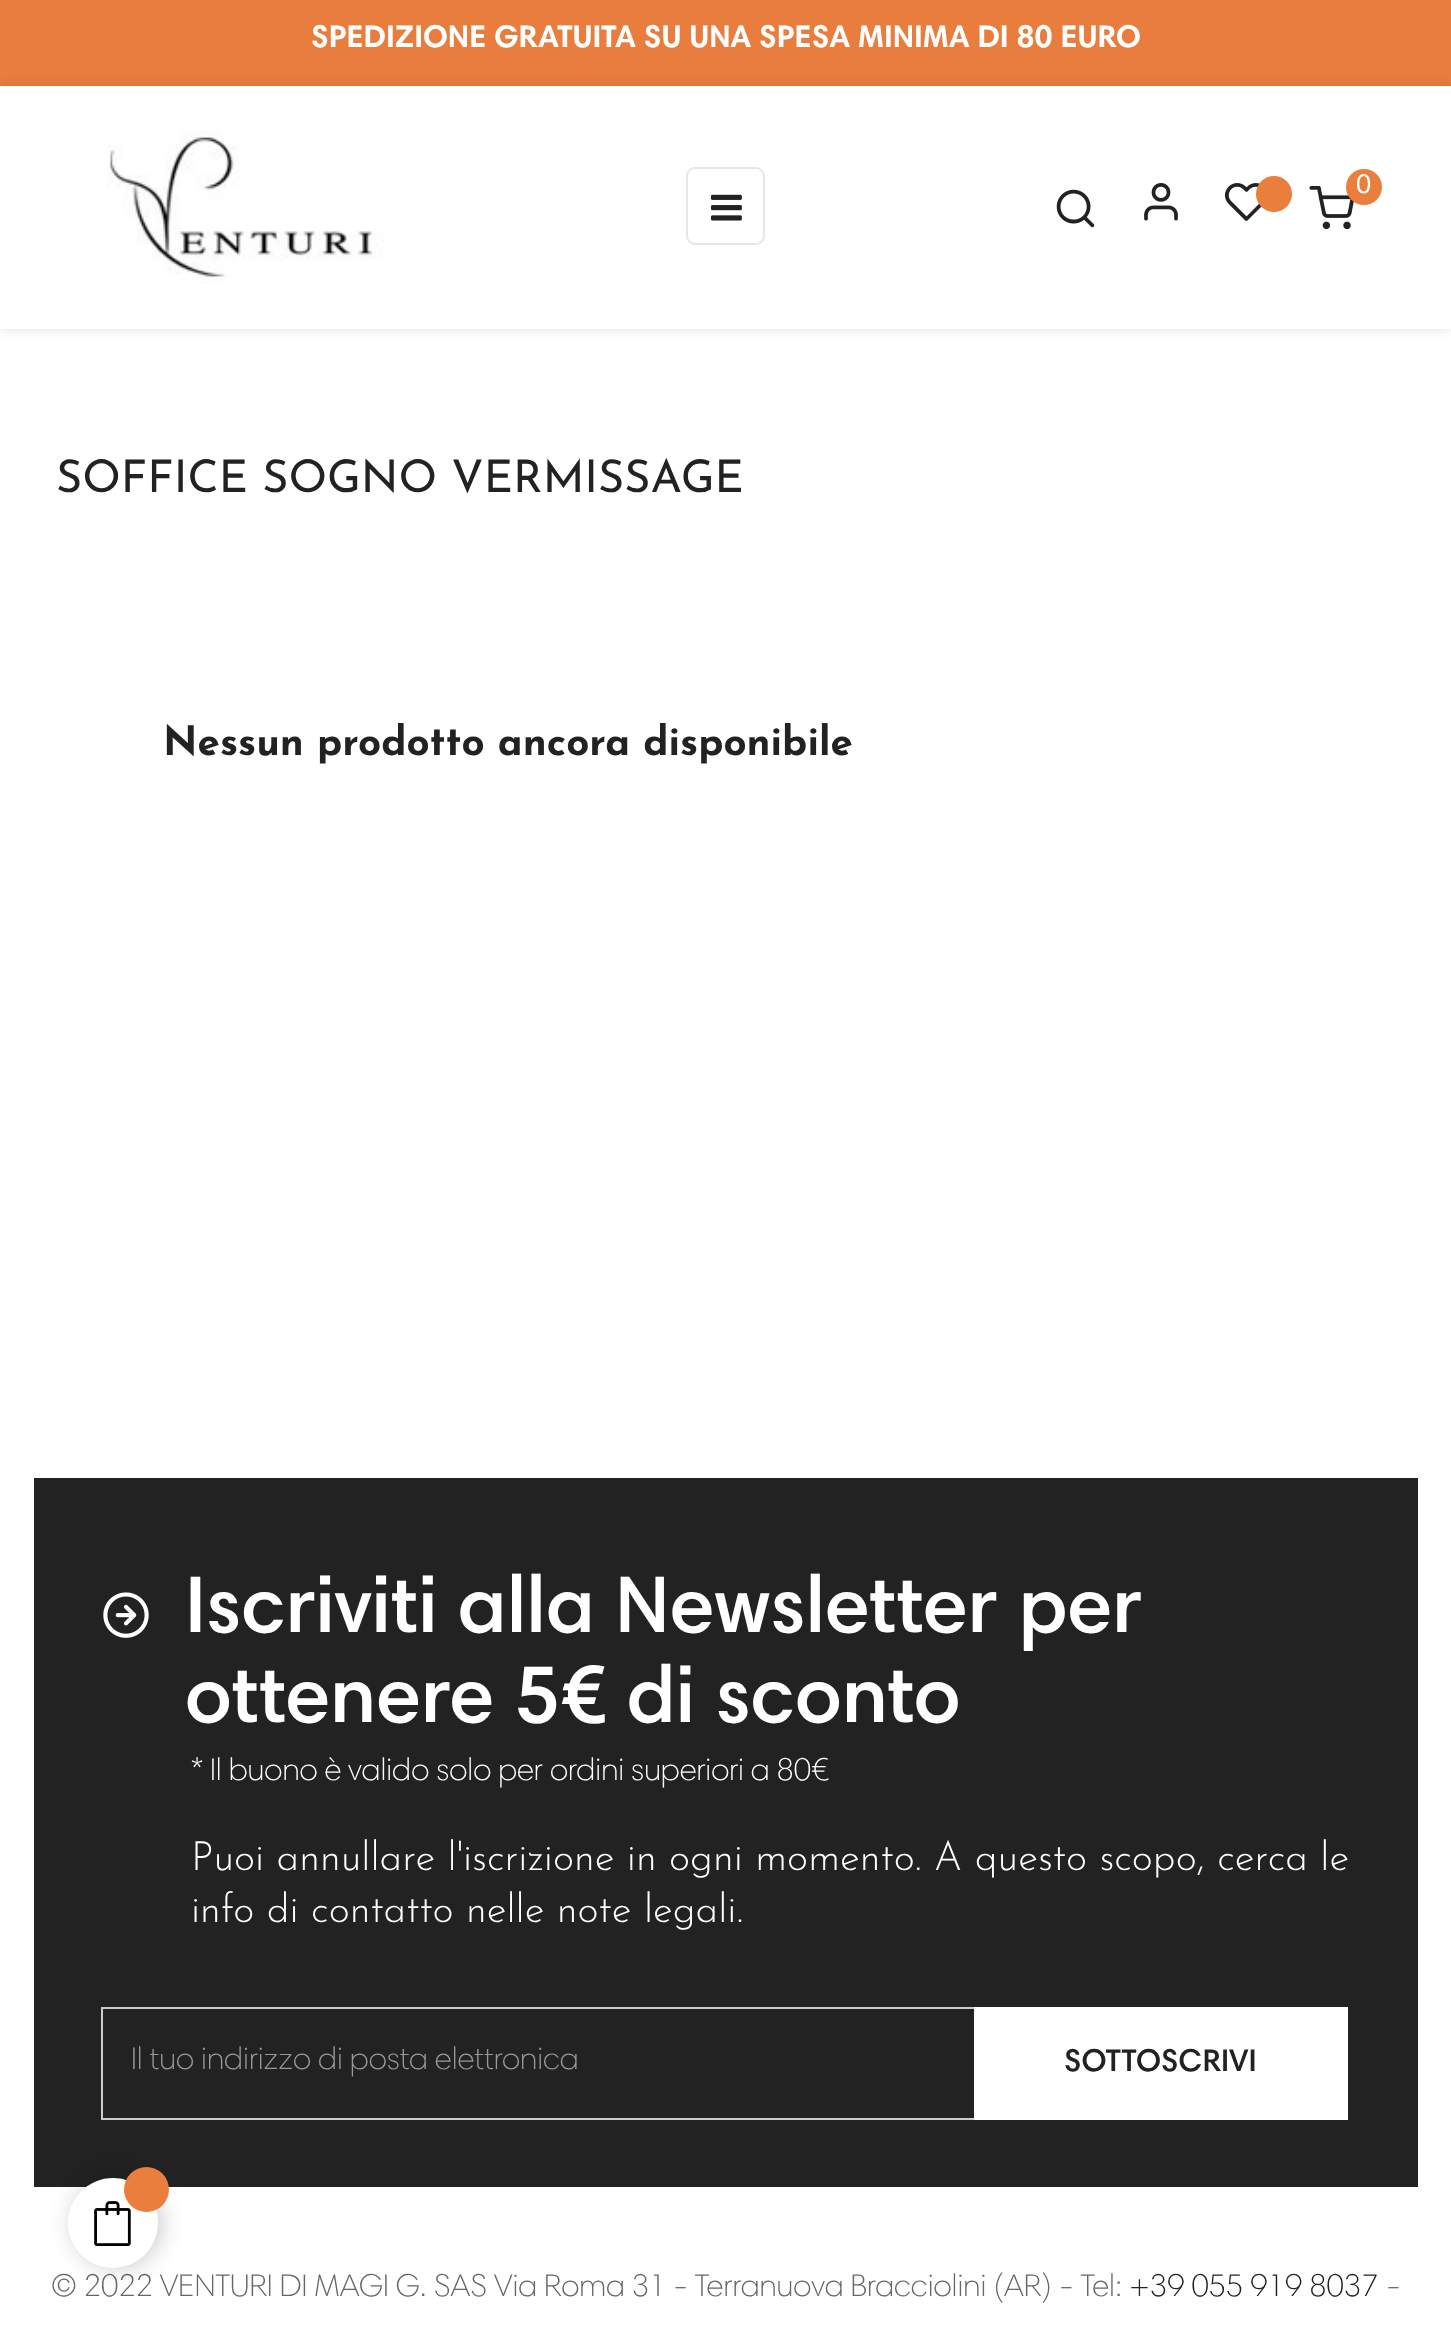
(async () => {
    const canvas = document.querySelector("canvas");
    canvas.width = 1451;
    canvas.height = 2334;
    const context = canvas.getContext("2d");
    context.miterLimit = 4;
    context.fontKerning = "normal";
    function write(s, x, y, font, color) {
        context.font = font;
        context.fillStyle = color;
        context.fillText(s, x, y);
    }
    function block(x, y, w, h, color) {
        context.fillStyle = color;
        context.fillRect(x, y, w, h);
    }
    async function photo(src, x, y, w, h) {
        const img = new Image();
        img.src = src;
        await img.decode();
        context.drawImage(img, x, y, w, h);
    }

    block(0, 0, 1451, 2334, "rgb(255, 255, 255)");
    block(0, 0, 1451, 86, "rgb(233, 125, 62)");
    write("SPEDIZIONE GRATUITA SU UNA SPESA MINIMA DI 80 EURO", 311, 47, "bold 31.5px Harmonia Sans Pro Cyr", "rgb(255, 255, 255)");
    context.fillStyle = "rgba(0, 0, 0, 0.12)";
    context.filter = "blur(5.5px)";
    context.beginPath();
    context.rect(0, 86, 1451, 243);
    context.fill();
    context.filter = "none";
    block(0, 86, 1451, 243, "rgb(255, 255, 255)");
    await photo("media/1.png", 107, 130, 277, 153);
    context.beginPath();
    context.roundRect(687, 168, 77, 76, 8);
    context.strokeStyle = "rgb(230, 230, 230)";
    context.lineWidth = 2;
    context.stroke();
    await photo("media/2.png", 711, 194, 31, 27);
    await photo("media/3.png", 1056, 189, 39, 39);
    await photo("media/4.png", 1144, 183, 34, 38);
    await photo("media/5.png", 1224, 183, 38, 38);
    context.fillStyle = "rgb(233, 126, 61)";
    context.beginPath();
    context.arc(1274, 194, 18, 0, Math.PI * 2);
    context.fill();
    await photo("media/6.png", 1309, 186, 45, 44);
    context.beginPath();
    context.arc(1364, 187, 18, 0, Math.PI * 2);
    context.fill();
    write("0", 1356, 193, "27px Harmonia Sans Pro Cyr", "rgb(255, 255, 255)");
    write("SOFFICE SOGNO VERMISSAGE", 56, 492, "45px Josefin Sans", "rgb(34, 34, 34)");
    write("Nessun prodotto ancora disponibile", 163, 755, "bold 40.5px Josefin Sans", "rgb(34, 34, 34)");
    block(34, 1478, 1384, 709, "rgb(34, 34, 34)");
    await photo("media/7.png", 103, 1592, 46, 46);
    write("Iscriviti alla Newsletter per", 185, 1632, "600 81px Harmonia Sans Pro Cyr", "rgb(255, 255, 255)");
    write("ottenere 5€ di sconto", 185, 1722, "600 81px Harmonia Sans Pro Cyr", "rgb(255, 255, 255)");
    write("* Il buono è valido solo per ordini superiori a 80€", 191, 1780, "300 31.5px Harmonia Sans Pro Cyr", "rgb(255, 255, 255)");
    write("Puoi annullare l'iscrizione in ogni momento. A questo scopo, cerca le", 191, 1870, "300 40.5px Josefin Sans", "rgb(255, 255, 255)");
    write("info di contatto nelle note legali.", 191, 1922, "300 40.5px Josefin Sans", "rgb(255, 255, 255)");
    context.strokeStyle = "rgb(204, 204, 204)";
    context.strokeRect(102, 2008, 874, 111);
    write("Il tuo indirizzo di posta elettronica", 131, 2069, "300 31.5px Harmonia Sans Pro Cyr", "rgb(153, 153, 153)");
    block(974, 2007, 374, 113, "rgb(255, 255, 255)");
    write("SOTTOSCRIVI", 1064, 2071, "600 31.5px Harmonia Sans Pro Cyr", "rgb(34, 34, 34)");
    write("© 2022 VENTURI DI MAGI G. SAS Via Roma 31 - Terranuova Bracciolini (AR) - Tel:", 51, 2296, "300 31.5px Harmonia Sans Pro Cyr", "rgb(102, 102, 102)");
    write("+39 055 919 8037", 1129, 2296, "300 31.5px Harmonia Sans Pro Cyr", "rgb(34, 34, 34)");
    write("-", 1386, 2296, "300 31.5px Harmonia Sans Pro Cyr", "rgb(102, 102, 102)");
    context.fillStyle = "rgba(0, 0, 0, 0.2)";
    context.filter = "blur(11px)";
    context.beginPath();
    context.roundRect(72, 2178, 90, 90, 45);
    context.fill();
    context.filter = "none";
    context.fillStyle = "rgb(255, 255, 255)";
    context.beginPath();
    context.arc(113, 2223, 45, 0, Math.PI * 2);
    context.fill();
    await photo("media/8.png", 94, 2201, 37, 45);
    context.fillStyle = "rgb(233, 126, 61)";
    context.beginPath();
    context.arc(146.5, 2189.5, 22.5, 0, Math.PI * 2);
    context.fill();
})();
